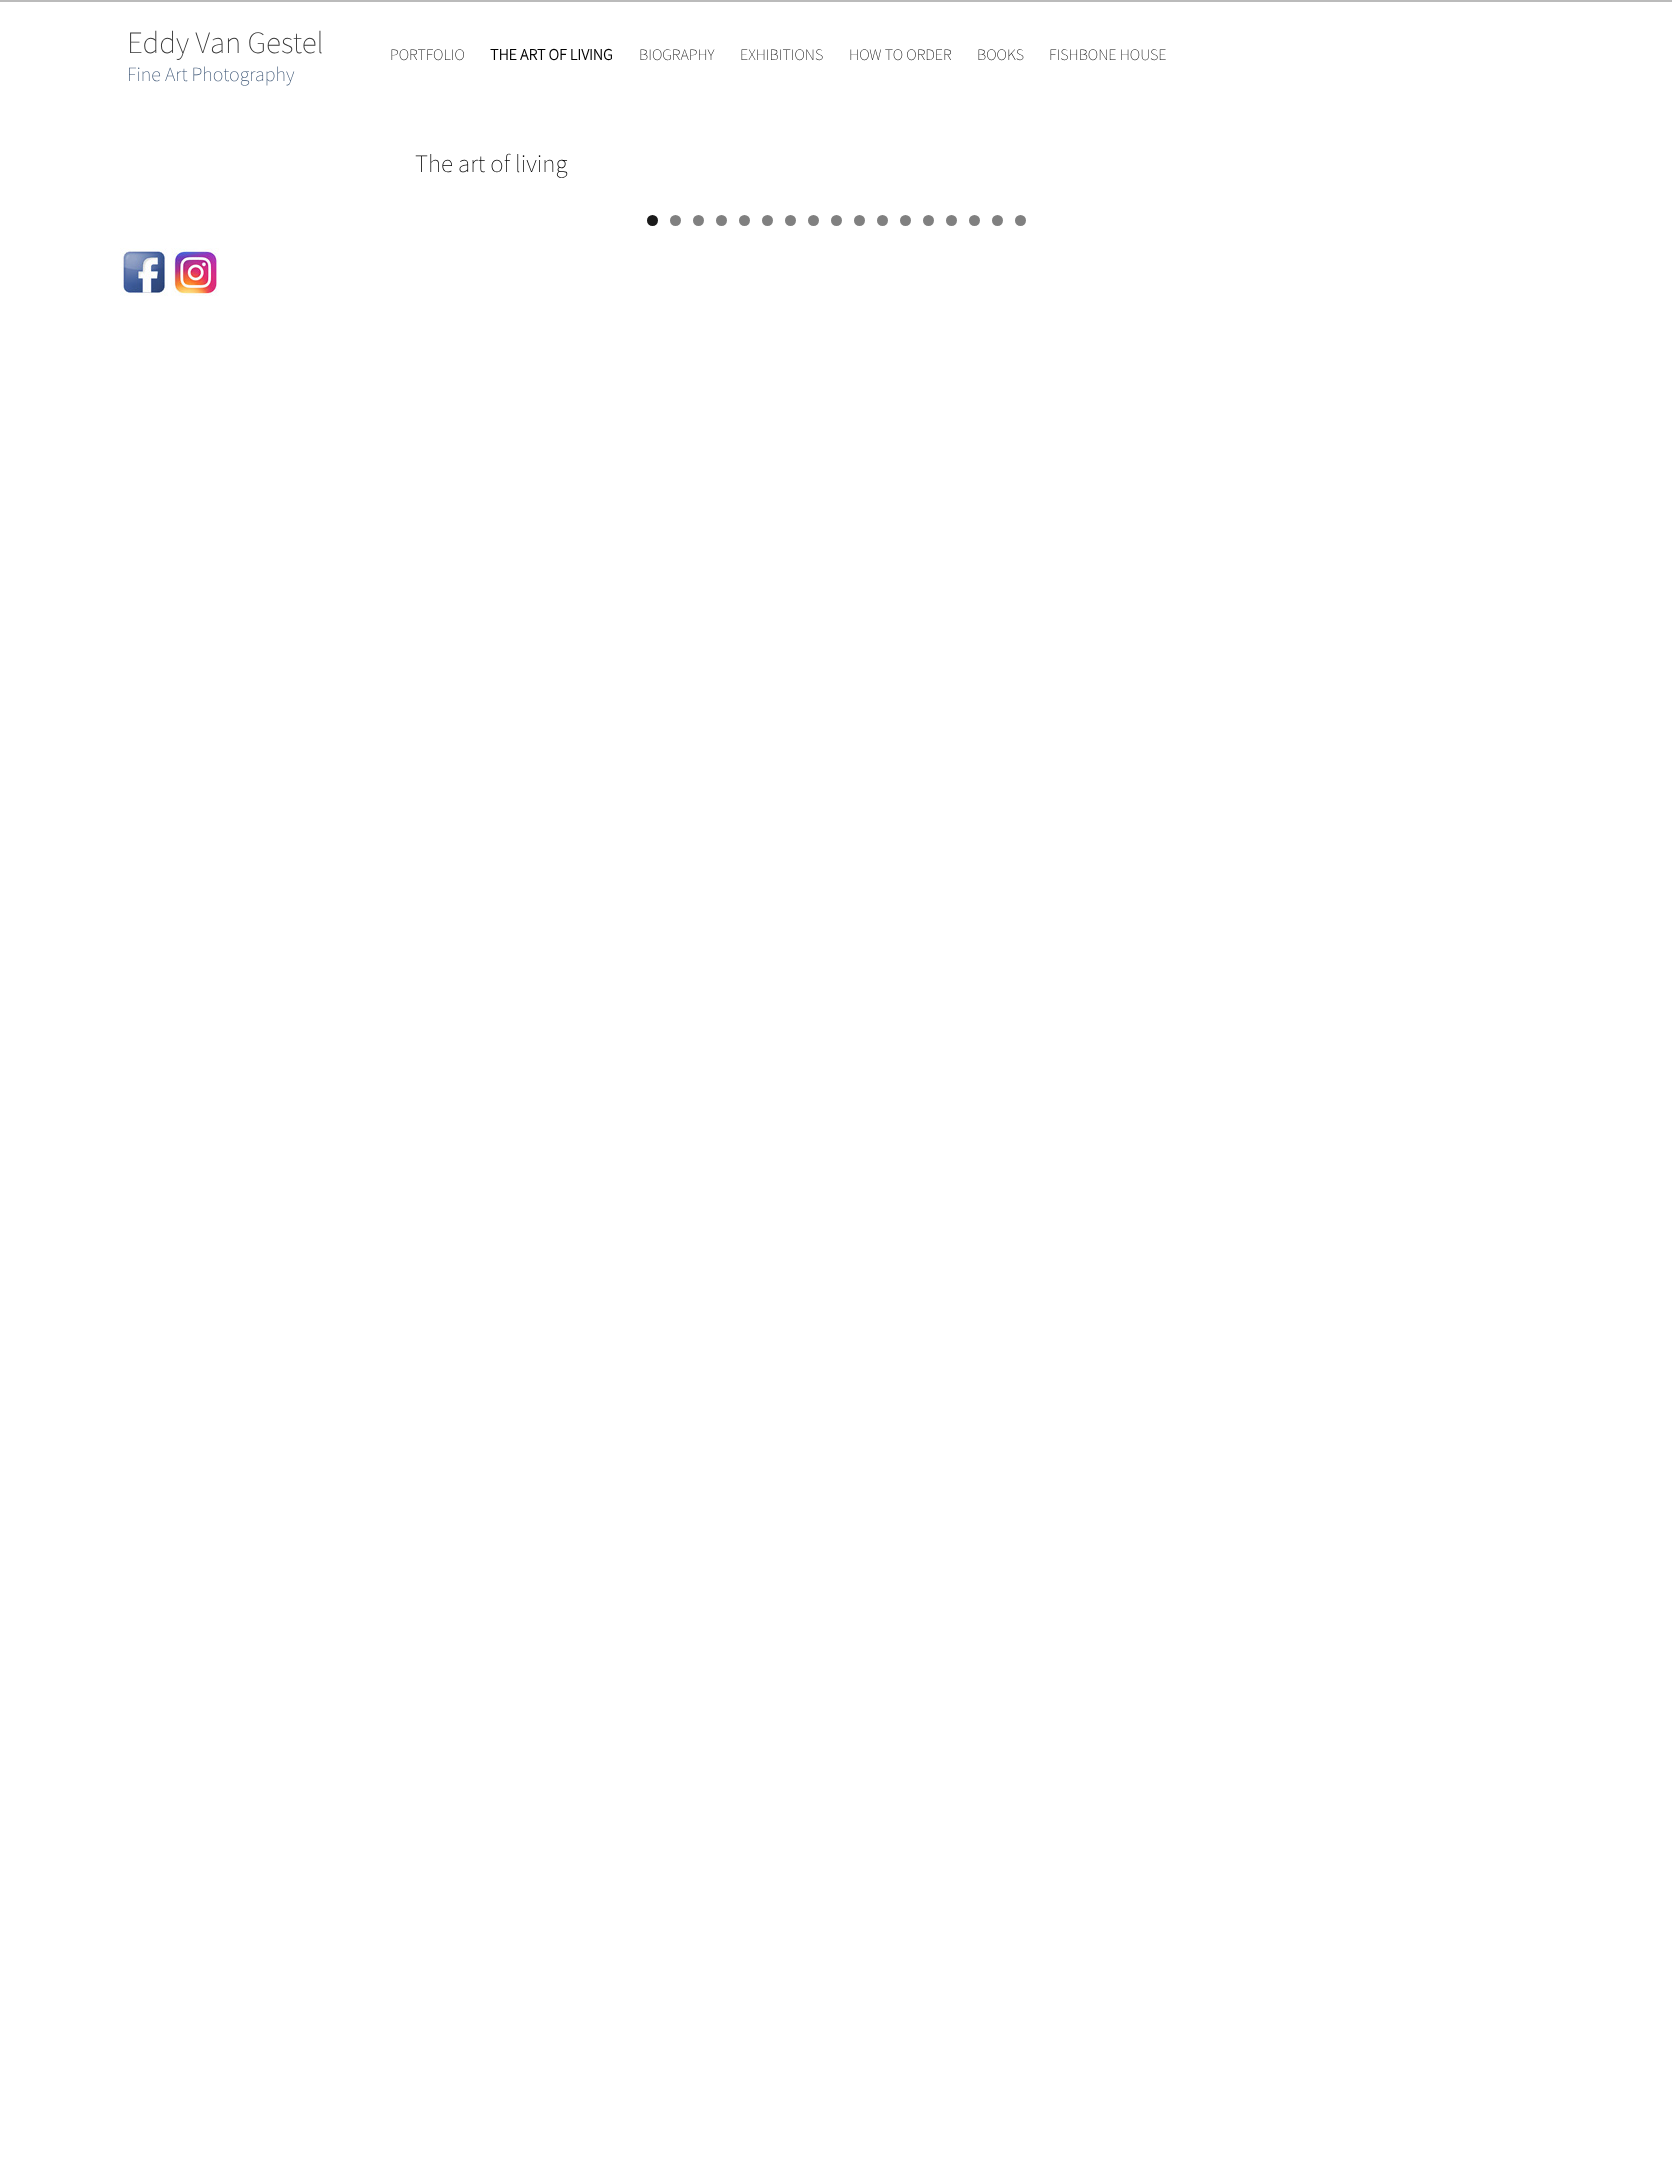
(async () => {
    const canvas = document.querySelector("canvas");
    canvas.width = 1672;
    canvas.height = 2166;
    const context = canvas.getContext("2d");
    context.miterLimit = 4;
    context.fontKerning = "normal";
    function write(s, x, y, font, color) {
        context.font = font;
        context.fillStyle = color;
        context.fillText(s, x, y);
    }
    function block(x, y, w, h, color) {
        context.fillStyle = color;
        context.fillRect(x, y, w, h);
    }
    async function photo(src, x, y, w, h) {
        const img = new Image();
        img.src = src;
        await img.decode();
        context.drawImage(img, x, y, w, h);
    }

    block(0, 0, 1672, 2166, "rgb(255, 255, 255)");
    block(0, 0, 1672, 2, "rgb(187, 187, 187)");
    write("Eddy Van Gestel", 127, 53, "200 31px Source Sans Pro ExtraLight", "rgb(55, 55, 55)");
    write("Fine Art Photography", 127, 81, "200 20px Source Sans Pro ExtraLight", "rgb(53, 79, 112)");
    write("PORTFOLIO", 390, 60, "200 16px Source Sans Pro ExtraLight", "rgb(0, 0, 0)");
    write("THE ART OF LIVING", 490, 60, "bold 16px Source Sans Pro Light", "rgb(0, 0, 0)");
    write("BIOGRAPHY", 639, 60, "200 16px Source Sans Pro ExtraLight", "rgb(0, 0, 0)");
    write("EXHIBITIONS", 740, 60, "200 16px Source Sans Pro ExtraLight", "rgb(0, 0, 0)");
    write("HOW TO ORDER", 849, 60, "200 16px Source Sans Pro ExtraLight", "rgb(0, 0, 0)");
    write("BOOKS", 977, 60, "200 16px Source Sans Pro ExtraLight", "rgb(0, 0, 0)");
    write("FISHBONE HOUSE", 1049, 60, "200 16px Source Sans Pro ExtraLight", "rgb(0, 0, 0)");
    write("The art of living", 415, 172, "200 25px Source Sans Pro ExtraLight", "rgb(0, 0, 0)");
    context.fillStyle = "rgb(26, 26, 26)";
    context.beginPath();
    context.arc(652.5, 220.5, 5.5, 0, Math.PI * 2);
    context.fill();
    context.fillStyle = "rgb(128, 128, 128)";
    context.beginPath();
    context.arc(675.5, 220.5, 5.5, 0, Math.PI * 2);
    context.fill();
    context.beginPath();
    context.arc(698.5, 220.5, 5.5, 0, Math.PI * 2);
    context.fill();
    context.beginPath();
    context.arc(721.5, 220.5, 5.5, 0, Math.PI * 2);
    context.fill();
    context.beginPath();
    context.arc(744.5, 220.5, 5.5, 0, Math.PI * 2);
    context.fill();
    context.beginPath();
    context.arc(767.5, 220.5, 5.5, 0, Math.PI * 2);
    context.fill();
    context.beginPath();
    context.arc(790.5, 220.5, 5.5, 0, Math.PI * 2);
    context.fill();
    context.beginPath();
    context.arc(813.5, 220.5, 5.5, 0, Math.PI * 2);
    context.fill();
    context.beginPath();
    context.arc(836.5, 220.5, 5.5, 0, Math.PI * 2);
    context.fill();
    context.beginPath();
    context.arc(859.5, 220.5, 5.5, 0, Math.PI * 2);
    context.fill();
    context.beginPath();
    context.arc(882.5, 220.5, 5.5, 0, Math.PI * 2);
    context.fill();
    context.beginPath();
    context.arc(905.5, 220.5, 5.5, 0, Math.PI * 2);
    context.fill();
    context.beginPath();
    context.arc(928.5, 220.5, 5.5, 0, Math.PI * 2);
    context.fill();
    context.beginPath();
    context.arc(951.5, 220.5, 5.5, 0, Math.PI * 2);
    context.fill();
    context.beginPath();
    context.arc(974.5, 220.5, 5.5, 0, Math.PI * 2);
    context.fill();
    context.beginPath();
    context.arc(997.5, 220.5, 5.5, 0, Math.PI * 2);
    context.fill();
    context.beginPath();
    context.arc(1020.5, 220.5, 5.5, 0, Math.PI * 2);
    context.fill();
    await photo("media/1.png", 120, 248, 48, 48);
    await photo("media/2.png", 171, 248, 48, 48);
})();
